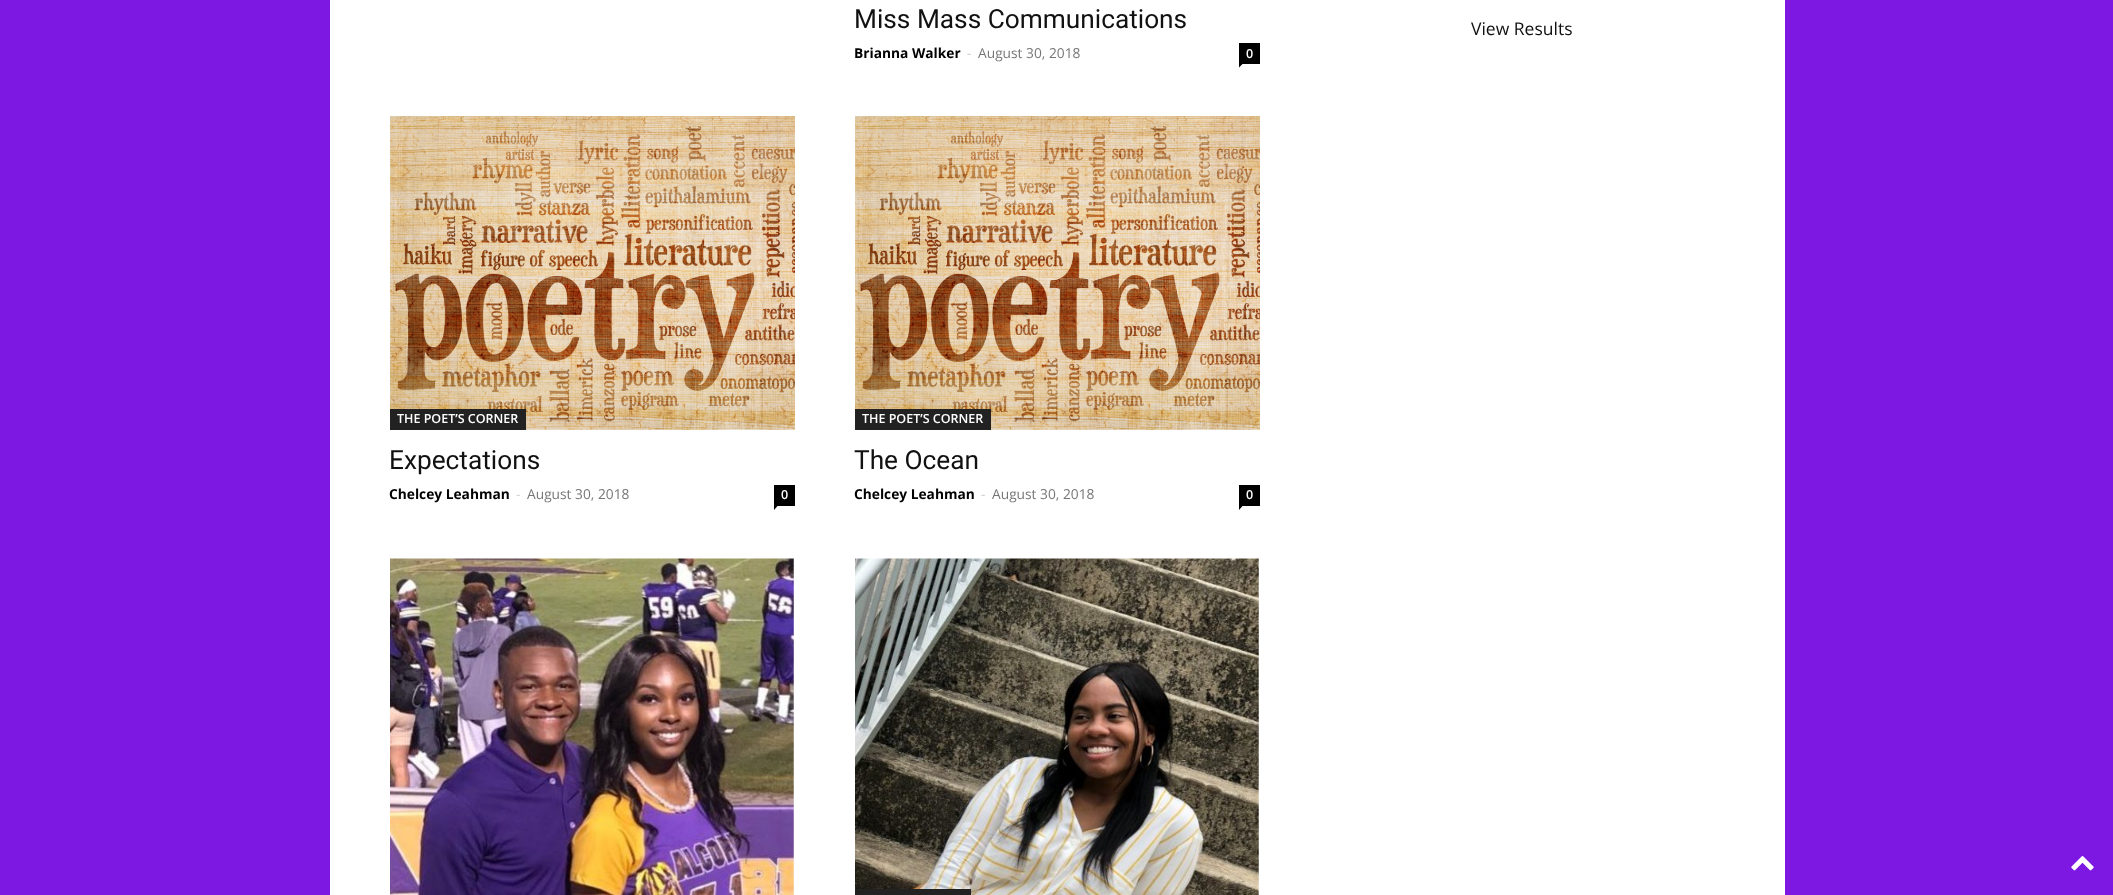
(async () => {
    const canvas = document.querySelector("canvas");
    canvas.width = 2113;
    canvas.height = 895;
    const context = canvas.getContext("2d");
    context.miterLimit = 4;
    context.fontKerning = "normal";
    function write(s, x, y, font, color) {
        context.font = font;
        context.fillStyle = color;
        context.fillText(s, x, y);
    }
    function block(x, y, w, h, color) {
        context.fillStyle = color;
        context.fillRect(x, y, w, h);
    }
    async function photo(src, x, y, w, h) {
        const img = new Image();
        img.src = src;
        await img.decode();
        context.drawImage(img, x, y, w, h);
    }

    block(0, 0, 2113, 895, "rgb(125, 24, 226)");
    block(330, 0, 1455, 895, "rgb(255, 255, 255)");
    write("Miss Mass Communications", 854, 28, "26.25px Roboto", "rgb(17, 17, 17)");
    write("Brianna Walker", 854, 58, "bold 13.75px Open Sans", "rgb(0, 0, 0)");
    write("-", 967, 58, "13.75px Open Sans", "rgb(204, 204, 204)");
    write("August 30, 2018", 978, 58, "13.75px Open Sans", "rgb(118, 118, 118)");
    block(1239, 43, 21, 21, "rgb(0, 0, 0)");
    write("0", 1246, 58, "600 12.5px Open Sans", "rgb(255, 255, 255)");
    context.fillStyle = "rgb(0, 0, 0)";
    context.beginPath();
    context.moveTo(1239, 64);
    context.lineTo(1242.5, 64);
    context.lineTo(1239, 67.5);
    context.closePath();
    context.fill();
    await photo("media/1.png", 390, 116, 405, 314);
    block(390, 409, 136, 21, "rgb(34, 34, 34)");
    write("THE POET’S CORNER", 397, 423, "600 12.5px Open Sans", "rgb(255, 255, 255)");
    write("Expectations", 389, 469, "26.25px Roboto", "rgb(17, 17, 17)");
    write("Chelcey Leahman", 389, 499, "bold 13.75px Open Sans", "rgb(0, 0, 0)");
    write("-", 516, 499, "13.75px Open Sans", "rgb(204, 204, 204)");
    write("August 30, 2018", 527, 499, "13.75px Open Sans", "rgb(118, 118, 118)");
    block(774, 485, 21, 21, "rgb(0, 0, 0)");
    write("0", 781, 499, "600 12.5px Open Sans", "rgb(255, 255, 255)");
    context.fillStyle = "rgb(0, 0, 0)";
    context.beginPath();
    context.moveTo(774, 506);
    context.lineTo(777.5, 506);
    context.lineTo(774, 510);
    context.closePath();
    context.fill();
    await photo("media/2.png", 855, 116, 405, 314);
    block(855, 409, 136, 21, "rgb(34, 34, 34)");
    write("THE POET’S CORNER", 862, 423, "600 12.5px Open Sans", "rgb(255, 255, 255)");
    write("The Ocean", 854, 469, "26.25px Roboto", "rgb(17, 17, 17)");
    write("Chelcey Leahman", 854, 499, "bold 13.75px Open Sans", "rgb(0, 0, 0)");
    write("-", 981, 499, "13.75px Open Sans", "rgb(204, 204, 204)");
    write("August 30, 2018", 992, 499, "13.75px Open Sans", "rgb(118, 118, 118)");
    block(1239, 485, 21, 21, "rgb(0, 0, 0)");
    write("0", 1246, 499, "600 12.5px Open Sans", "rgb(255, 255, 255)");
    context.fillStyle = "rgb(0, 0, 0)";
    context.beginPath();
    context.moveTo(1239, 506);
    context.lineTo(1242.5, 506);
    context.lineTo(1239, 510);
    context.closePath();
    context.fill();
    await photo("media/3.png", 390, 558, 404, 337);
    await photo("media/4.png", 855, 558, 404, 337);
    block(855, 889, 116, 6, "rgb(34, 34, 34)");
    write("View Results", 1471, 35, "17.5px Open Sans", "rgb(17, 17, 17)");
    await photo("media/5.png", 2071, 856, 23, 15);
})();
